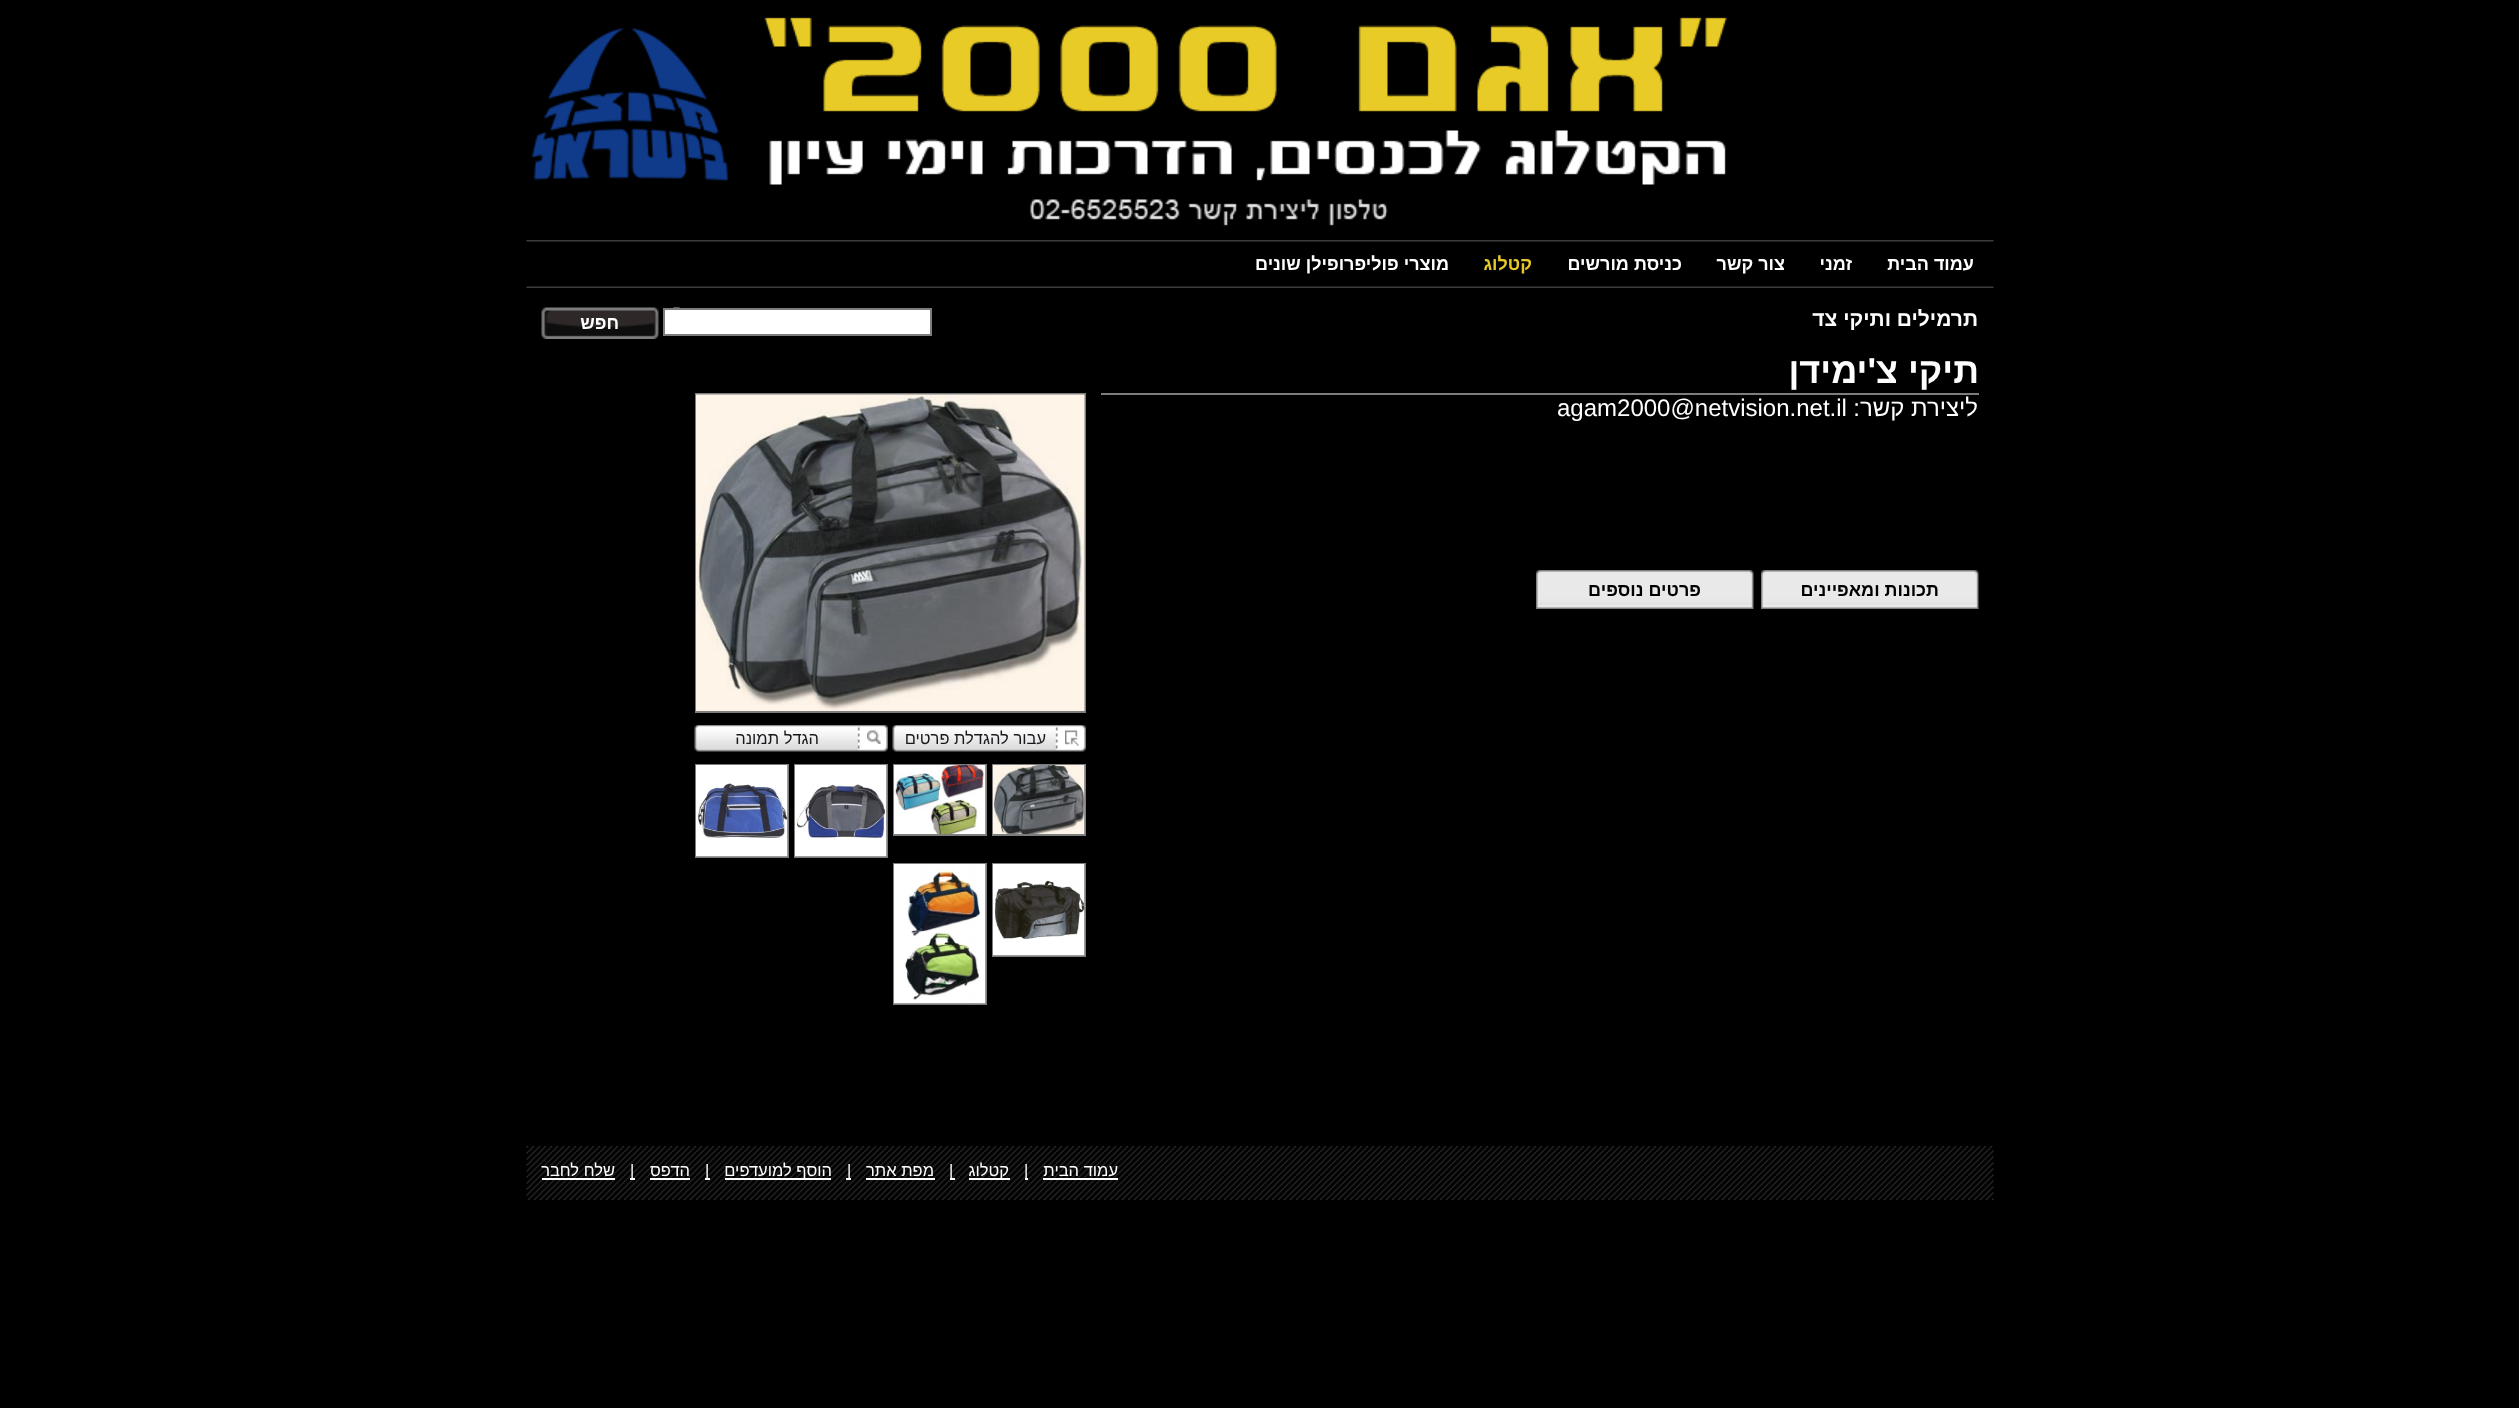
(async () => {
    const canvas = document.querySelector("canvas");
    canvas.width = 2519;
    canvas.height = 1408;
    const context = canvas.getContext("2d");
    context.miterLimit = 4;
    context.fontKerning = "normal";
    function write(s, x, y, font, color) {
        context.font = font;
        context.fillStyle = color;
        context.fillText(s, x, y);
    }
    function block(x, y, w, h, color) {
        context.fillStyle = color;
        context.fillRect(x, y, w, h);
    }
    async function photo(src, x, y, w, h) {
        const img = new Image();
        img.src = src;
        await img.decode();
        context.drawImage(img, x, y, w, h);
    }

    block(0, 0, 2519, 1408, "rgb(0, 0, 0)");
    await photo("media/1.png", 532, 17, 1195, 209);
    await photo("media/2.png", 526, 240, 1468, 48);
    context.direction = "rtl";
    write("עמוד הבית", 1974, 270, "bold 18px Liberation Sans", "rgb(255, 255, 255)");
    write("זמני", 1852, 270, "bold 18px Liberation Sans", "rgb(255, 255, 255)");
    write("צור קשר", 1785, 270, "bold 18px Liberation Sans", "rgb(255, 255, 255)");
    write("כניסת מורשים", 1682, 270, "bold 18px Liberation Sans", "rgb(255, 255, 255)");
    write("קטלוג", 1532, 270, "bold 18px Liberation Sans", "rgb(231, 201, 39)");
    write("מוצרי פוליפרופילן שונים", 1449, 270, "bold 18px Liberation Sans", "rgb(255, 255, 255)");
    write("תרמילים ותיקי צד", 1978, 326, "bold 21px Liberation Sans", "rgb(255, 255, 255)");
    context.beginPath();
    context.rect(664, 309, 267, 26);
    context.fill();
    context.strokeStyle = "rgb(125, 125, 125)";
    context.lineWidth = 2;
    context.stroke();
    await photo("media/3.png", 673, 307, 7, 1);
    await photo("media/4.png", 541, 307, 118, 32);
    write("חפש", 619, 329, "bold 18px Liberation Sans", "rgb(255, 255, 255)");
    write("תיקי צ'ימידן", 1979, 383, "bold 36px Liberation Sans", "rgb(255, 255, 255)");
    block(1101, 393, 878, 2, "rgb(125, 125, 125)");
    write("ליצירת קשר:", 1978, 416, "24px Liberation Sans", "rgb(255, 255, 255)");
    context.direction = "ltr";
    write("agam2000@netvision.net.il", 1557, 416, "24px Liberation Sans", "rgb(255, 255, 255)");
    await photo("media/5.png", 1761, 570, 218, 39);
    context.direction = "rtl";
    write("תכונות ומאפיינים", 1939, 596, "bold 18px Liberation Sans", "rgb(0, 0, 0)");
    await photo("media/5.png", 1536, 570, 218, 39);
    write("פרטים נוספים", 1701, 596, "bold 18px Liberation Sans", "rgb(0, 0, 0)");
    context.strokeRect(696, 394, 389, 318);
    await photo("media/6.png", 696, 394, 389, 317);
    await photo("media/7.png", 892, 725, 194, 27);
    await photo("media/8.png", 1065, 730, 14, 16);
    write("עבור להגדלת פרטים", 1046, 744, "16.5px Liberation Sans", "rgb(23, 25, 29)");
    await photo("media/7.png", 694, 725, 194, 27);
    await photo("media/9.png", 867, 730, 14, 14);
    write("הגדל תמונה", 819, 744, "16.5px Liberation Sans", "rgb(23, 25, 29)");
    context.strokeRect(993, 765, 92, 70);
    await photo("media/10.png", 993, 765, 92, 69);
    context.strokeRect(894, 765, 92, 70);
    await photo("media/11.png", 894, 765, 92, 69);
    context.strokeRect(795, 765, 92, 92);
    await photo("media/12.png", 795, 765, 92, 92);
    context.strokeRect(696, 765, 92, 92);
    await photo("media/13.png", 696, 765, 92, 92);
    context.strokeRect(993, 864, 92, 92);
    await photo("media/14.png", 993, 864, 92, 92);
    context.strokeRect(894, 864, 92, 140);
    await photo("media/15.png", 894, 864, 92, 140);
    await photo("media/16.png", 526, 1146, 1468, 54);
    write("עמוד הבית", 1118, 1176, "16.5px Liberation Sans", "rgb(255, 255, 255)");
    block(1043, 1178, 75, 2, "rgb(255, 255, 255)");
    block(1025, 1178, 3, 2, "rgb(255, 255, 255)");
    context.direction = "ltr";
    write("|", 1024, 1176, "16.5px Liberation Sans", "rgb(255, 255, 255)");
    block(969, 1178, 41, 2, "rgb(255, 255, 255)");
    context.direction = "rtl";
    write("קטלוג", 1009, 1176, "16.5px Liberation Sans", "rgb(255, 255, 255)");
    block(950, 1178, 5, 2, "rgb(255, 255, 255)");
    context.direction = "ltr";
    write("|", 949, 1176, "16.5px Liberation Sans", "rgb(255, 255, 255)");
    context.direction = "rtl";
    write("מפת אתר", 934, 1176, "16.5px Liberation Sans", "rgb(255, 255, 255)");
    block(866, 1178, 69, 2, "rgb(255, 255, 255)");
    block(846, 1178, 5, 2, "rgb(255, 255, 255)");
    context.direction = "ltr";
    write("|", 847, 1176, "16.5px Liberation Sans", "rgb(255, 255, 255)");
    block(725, 1178, 106, 2, "rgb(255, 255, 255)");
    context.direction = "rtl";
    write("הוסף למועדפים", 832, 1176, "16.5px Liberation Sans", "rgb(255, 255, 255)");
    block(705, 1178, 5, 2, "rgb(255, 255, 255)");
    context.direction = "ltr";
    write("|", 705, 1176, "16.5px Liberation Sans", "rgb(255, 255, 255)");
    context.direction = "rtl";
    write("הדפס", 690, 1176, "16.5px Liberation Sans", "rgb(255, 255, 255)");
    block(650, 1178, 40, 2, "rgb(255, 255, 255)");
    block(630, 1178, 5, 2, "rgb(255, 255, 255)");
    context.direction = "ltr";
    write("|", 630, 1176, "16.5px Liberation Sans", "rgb(255, 255, 255)");
    context.direction = "rtl";
    write("שלח לחבר", 615, 1176, "16.5px Liberation Sans", "rgb(255, 255, 255)");
    block(542, 1178, 73, 2, "rgb(255, 255, 255)");
})();
